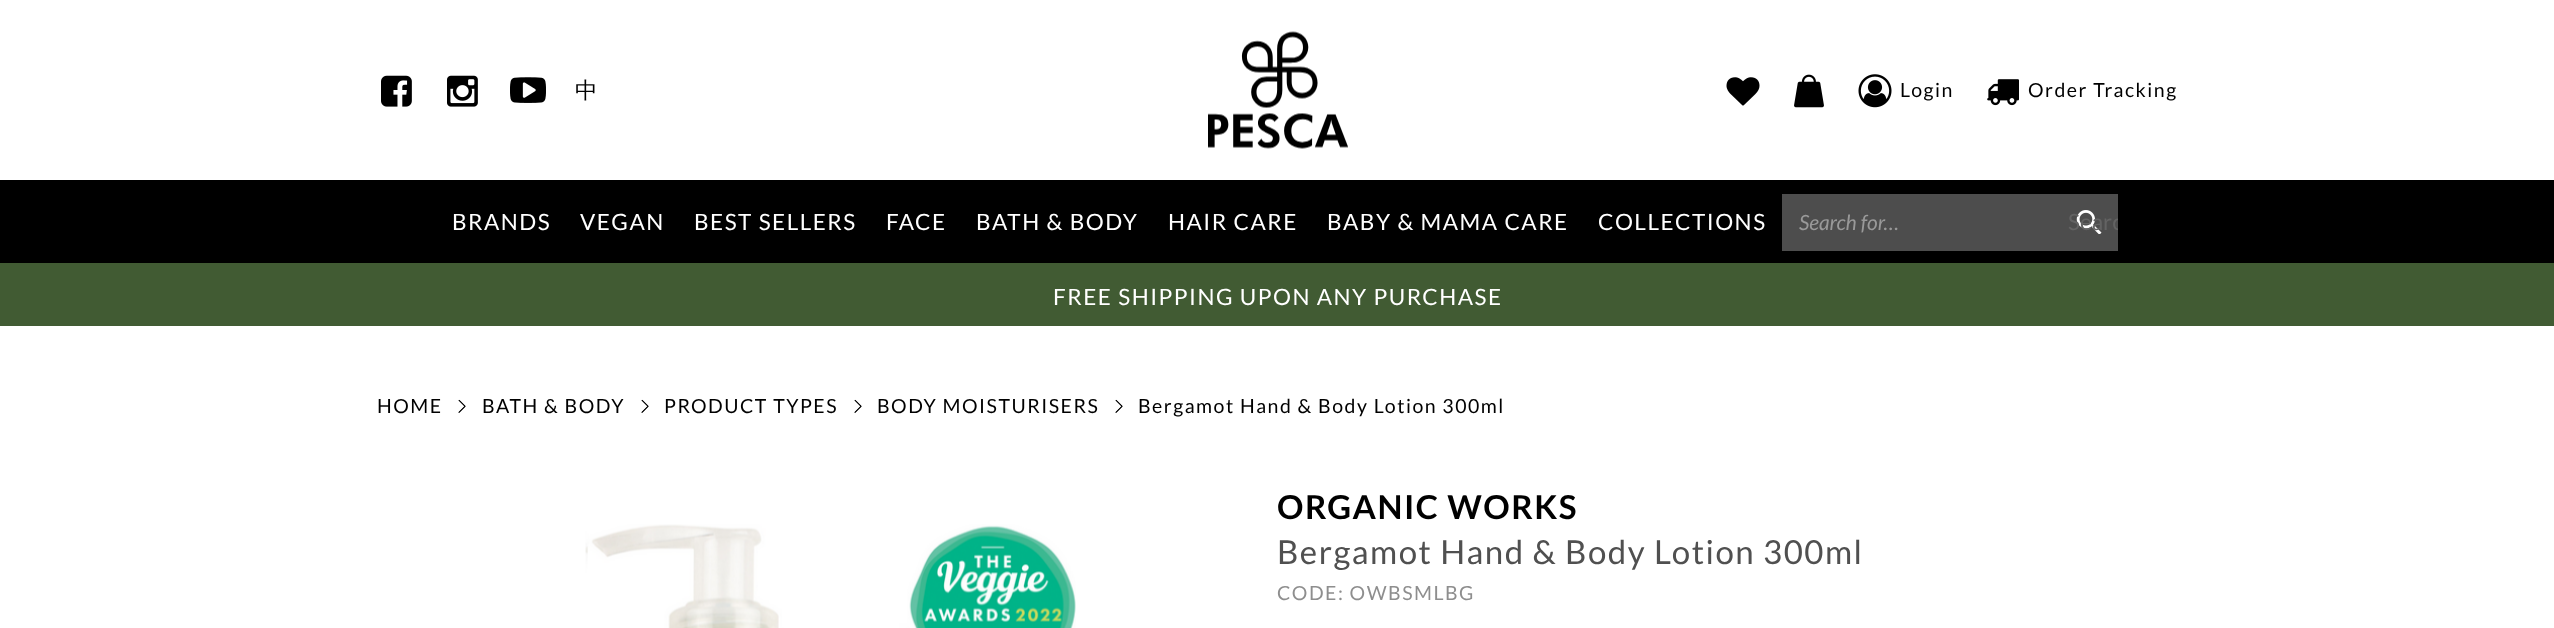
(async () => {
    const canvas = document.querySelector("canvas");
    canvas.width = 2554;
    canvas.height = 628;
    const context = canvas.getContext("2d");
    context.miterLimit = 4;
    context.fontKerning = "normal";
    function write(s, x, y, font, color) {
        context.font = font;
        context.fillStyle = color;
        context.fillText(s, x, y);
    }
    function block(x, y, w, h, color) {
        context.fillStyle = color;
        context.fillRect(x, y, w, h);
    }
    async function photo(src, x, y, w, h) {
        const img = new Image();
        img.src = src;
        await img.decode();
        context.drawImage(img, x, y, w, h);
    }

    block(0, 0, 2554, 628, "rgb(255, 255, 255)");
    await photo("media/1.png", 381, 75, 31, 32);
    await photo("media/2.png", 447, 75, 31, 32);
    await photo("media/3.png", 510, 77, 36, 26);
    context.letterSpacing = "1.5px";
    write("中", 575, 98, "500 22.5px WenQuanYi Zen Hei", "rgb(0, 0, 0)");
    await photo("media/4.png", 1208, 31, 140, 118);
    await photo("media/5.png", 1726, 77, 34, 29);
    await photo("media/6.png", 1794, 74, 30, 34);
    await photo("media/7.png", 1858, 74, 34, 34);
    write("Login", 1900, 97, "19.5px Lato", "rgb(0, 0, 0)");
    await photo("media/8.png", 1987, 79, 32, 27);
    write("Order Tracking", 2028, 97, "19.5px Lato", "rgb(0, 0, 0)");
    block(0, 180, 2554, 83, "rgb(0, 0, 0)");
    write("BRANDS", 452, 230, "22.5px Lato", "rgb(255, 255, 255)");
    write("VEGAN", 580, 230, "22.5px Lato", "rgb(255, 255, 255)");
    write("BEST SELLERS", 694, 230, "22.5px Lato", "rgb(255, 255, 255)");
    write("FACE", 886, 230, "22.5px Lato", "rgb(255, 255, 255)");
    write("BATH & BODY", 976, 230, "22.5px Lato", "rgb(255, 255, 255)");
    write("HAIR CARE", 1168, 230, "22.5px Lato", "rgb(255, 255, 255)");
    write("BABY & MAMA CARE", 1327, 230, "22.5px Lato", "rgb(255, 255, 255)");
    write("COLLECTIONS", 1598, 230, "22.5px Lato", "rgb(255, 255, 255)");
    block(1782, 194, 336, 57, "rgb(77, 77, 77)");
    context.letterSpacing = "0px";
    write("Search for…", 1799, 230, "italic 21px Lato", "rgb(153, 153, 153)");
    await photo("media/9.png", 2076, 210, 26, 24);
    context.save();
    context.beginPath();
    context.rect(2061, 194, 57, 57);
    context.clip();
    write("Searc", 2068, 230, "22.5px Lato", "rgb(99, 99, 99)");
    context.restore();
    block(0, 263, 2554, 63, "rgb(65, 91, 51)");
    context.letterSpacing = "1.5px";
    write("FREE SHIPPING UPON ANY PURCHASE", 1053, 305, "22.5px Lato", "rgb(255, 255, 255)");
    write("HOME", 377, 413, "19.5px Lato", "rgb(0, 0, 0)");
    await photo("media/10.png", 458, 399, 8, 14);
    write("BATH & BODY", 482, 413, "19.5px Lato", "rgb(0, 0, 0)");
    await photo("media/10.png", 641, 399, 8, 14);
    write("PRODUCT TYPES", 664, 413, "19.5px Lato", "rgb(0, 0, 0)");
    await photo("media/10.png", 854, 399, 8, 14);
    write("BODY MOISTURISERS", 877, 413, "19.5px Lato", "rgb(0, 0, 0)");
    await photo("media/10.png", 1115, 399, 8, 14);
    write("Bergamot Hand & Body Lotion 300ml", 1138, 413, "19.5px Lato", "rgb(0, 0, 0)");
    await photo("media/11.png", 585, 524, 491, 104);
    write("ORGANIC WORKS", 1277, 519, "bold 33px Lato", "rgb(0, 0, 0)");
    write("Bergamot Hand & Body Lotion 300ml", 1277, 564, "33px Lato", "rgb(80, 80, 80)");
    write("CODE: OWBSMLBG", 1277, 600, "19.5px Lato", "rgb(142, 142, 142)");
})();
